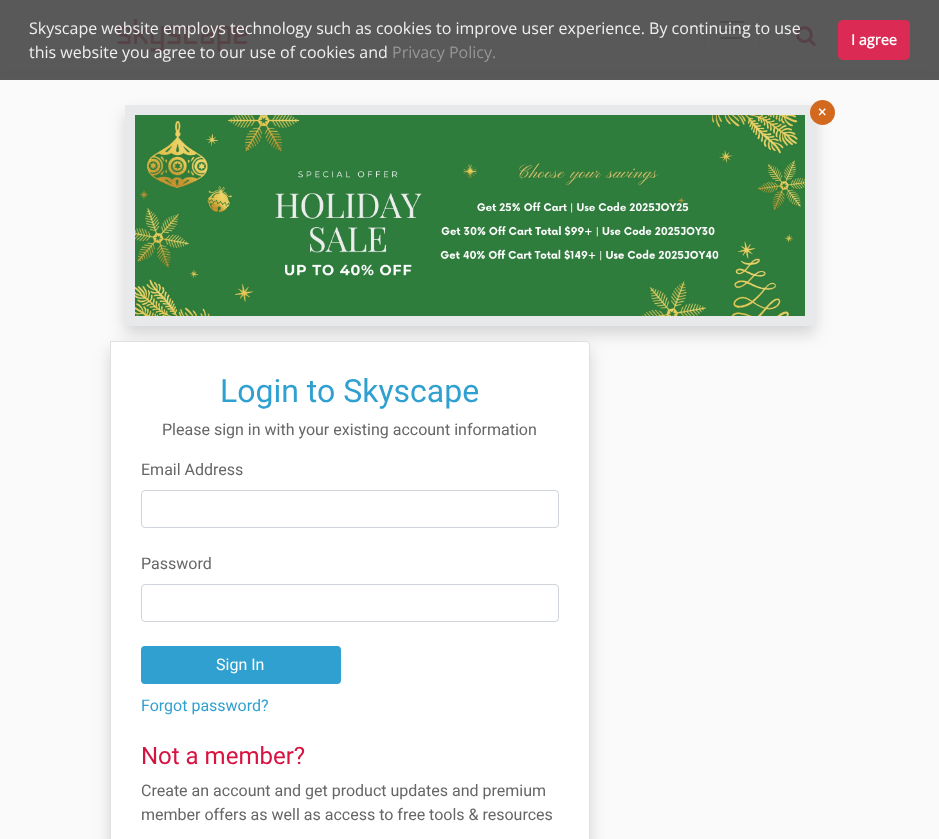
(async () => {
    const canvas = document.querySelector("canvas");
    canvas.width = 939;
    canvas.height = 839;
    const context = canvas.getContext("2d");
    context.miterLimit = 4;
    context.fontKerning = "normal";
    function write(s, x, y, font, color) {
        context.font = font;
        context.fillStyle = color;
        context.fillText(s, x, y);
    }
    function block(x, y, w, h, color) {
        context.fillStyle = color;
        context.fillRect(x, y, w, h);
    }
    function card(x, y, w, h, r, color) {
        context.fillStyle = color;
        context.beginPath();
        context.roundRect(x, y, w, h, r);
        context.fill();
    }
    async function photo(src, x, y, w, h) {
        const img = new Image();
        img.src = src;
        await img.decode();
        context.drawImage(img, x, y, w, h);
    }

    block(0, 0, 939, 839, "rgb(250, 250, 250)");
    context.fillStyle = "rgba(89, 98, 115, 0.2)";
    context.filter = "blur(5px)";
    context.beginPath();
    context.rect(1, 0, 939, 71);
    context.fill();
    context.filter = "none";
    block(0, 0, 939, 71, "rgb(255, 255, 255)");
    await photo("media/1.png", 117, 18, 131, 34);
    context.beginPath();
    context.roundRect(704.5, 10.5, 55, 39, 3.5);
    context.strokeStyle = "rgb(230, 230, 230)";
    context.stroke();
    await photo("media/2.png", 720, 21, 24, 18);
    await photo("media/3.png", 796, 26, 20, 20);
    block(0, 0, 939, 80, "rgba(71, 71, 71, 0.9)");
    write("Skyscape website employs technology such as cookies to improve user experience. By continuing to use", 29, 34, "16px Open Sans", "rgb(239, 239, 239)");
    write("this website you agree to our use of cookies and", 29, 58, "16px Open Sans", "rgb(239, 239, 239)");
    write("Privacy Policy.", 392, 58, "16px Open Sans", "rgb(150, 150, 150)");
    card(838, 20, 72, 40, 5, "rgb(219, 42, 84)");
    write("I agree", 851, 45, "bold 14.5px Open Sans", "rgb(255, 255, 255)");
    context.fillStyle = "rgba(0, 0, 0, 0.15)";
    context.filter = "blur(8px)";
    context.beginPath();
    context.rect(125, 113, 690, 221);
    context.fill();
    context.filter = "none";
    block(125, 105, 690, 221, "rgb(231, 233, 235)");
    context.fillStyle = "rgb(210, 105, 30)";
    context.beginPath();
    context.arc(822.5, 112.5, 12.5, 0, Math.PI * 2);
    context.fill();
    write("×", 818, 117, "16px Roboto", "rgb(255, 255, 255)");
    await photo("media/4.png", 135, 115, 670, 201);
    context.fillStyle = "rgba(0, 0, 0, 0.15)";
    context.filter = "blur(8px)";
    context.beginPath();
    context.roundRect(110, 349, 480, 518, 4);
    context.fill();
    context.filter = "none";
    context.fillStyle = "rgb(255, 255, 255)";
    context.beginPath();
    context.moveTo(110, 341);
    context.lineTo(586, 341);
    context.bezierCurveTo(588, 341, 590, 343, 590, 345);
    context.lineTo(590, 839);
    context.bezierCurveTo(590, 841, 588, 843, 586, 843);
    context.lineTo(110, 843);
    context.closePath();
    context.fill();
    context.beginPath();
    context.moveTo(110.5, 341.5);
    context.lineTo(586, 341.5);
    context.bezierCurveTo(588, 341.5, 589.5, 343, 589.5, 345);
    context.lineTo(589.5, 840);
    context.bezierCurveTo(589.5, 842, 588, 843.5, 586, 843.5);
    context.lineTo(110.5, 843.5);
    context.closePath();
    context.strokeStyle = "rgba(0, 0, 0, 0.12)";
    context.stroke();
    write("Login to Skyscape", 220, 402, "32px Roboto", "rgb(47, 160, 208)");
    write("Please sign in with your existing account information", 162, 435, "16px Roboto", "rgb(102, 102, 102)");
    write("Email Address", 141, 475, "16px Roboto", "rgb(102, 102, 102)");
    context.beginPath();
    context.roundRect(141.5, 490.5, 417, 37, 3.5);
    context.strokeStyle = "rgb(206, 212, 218)";
    context.stroke();
    write("Password", 141, 569, "16px Roboto", "rgb(102, 102, 102)");
    context.beginPath();
    context.roundRect(141.5, 584.5, 417, 37, 3.5);
    context.stroke();
    card(141, 646, 200, 38, 4, "rgb(47, 160, 208)");
    write("Sign In", 216, 670, "16px Roboto", "rgb(255, 255, 255)");
    write("Forgot password?", 141, 711, "16px Roboto", "rgb(47, 160, 208)");
    write("Not a member?", 141, 764, "24px Roboto", "rgb(215, 19, 65)");
    write("Create an account and get product updates and premium", 141, 796, "16px Roboto", "rgb(102, 102, 102)");
    write("member offers as well as access to free tools & resources", 141, 820, "16px Roboto", "rgb(102, 102, 102)");
})();
